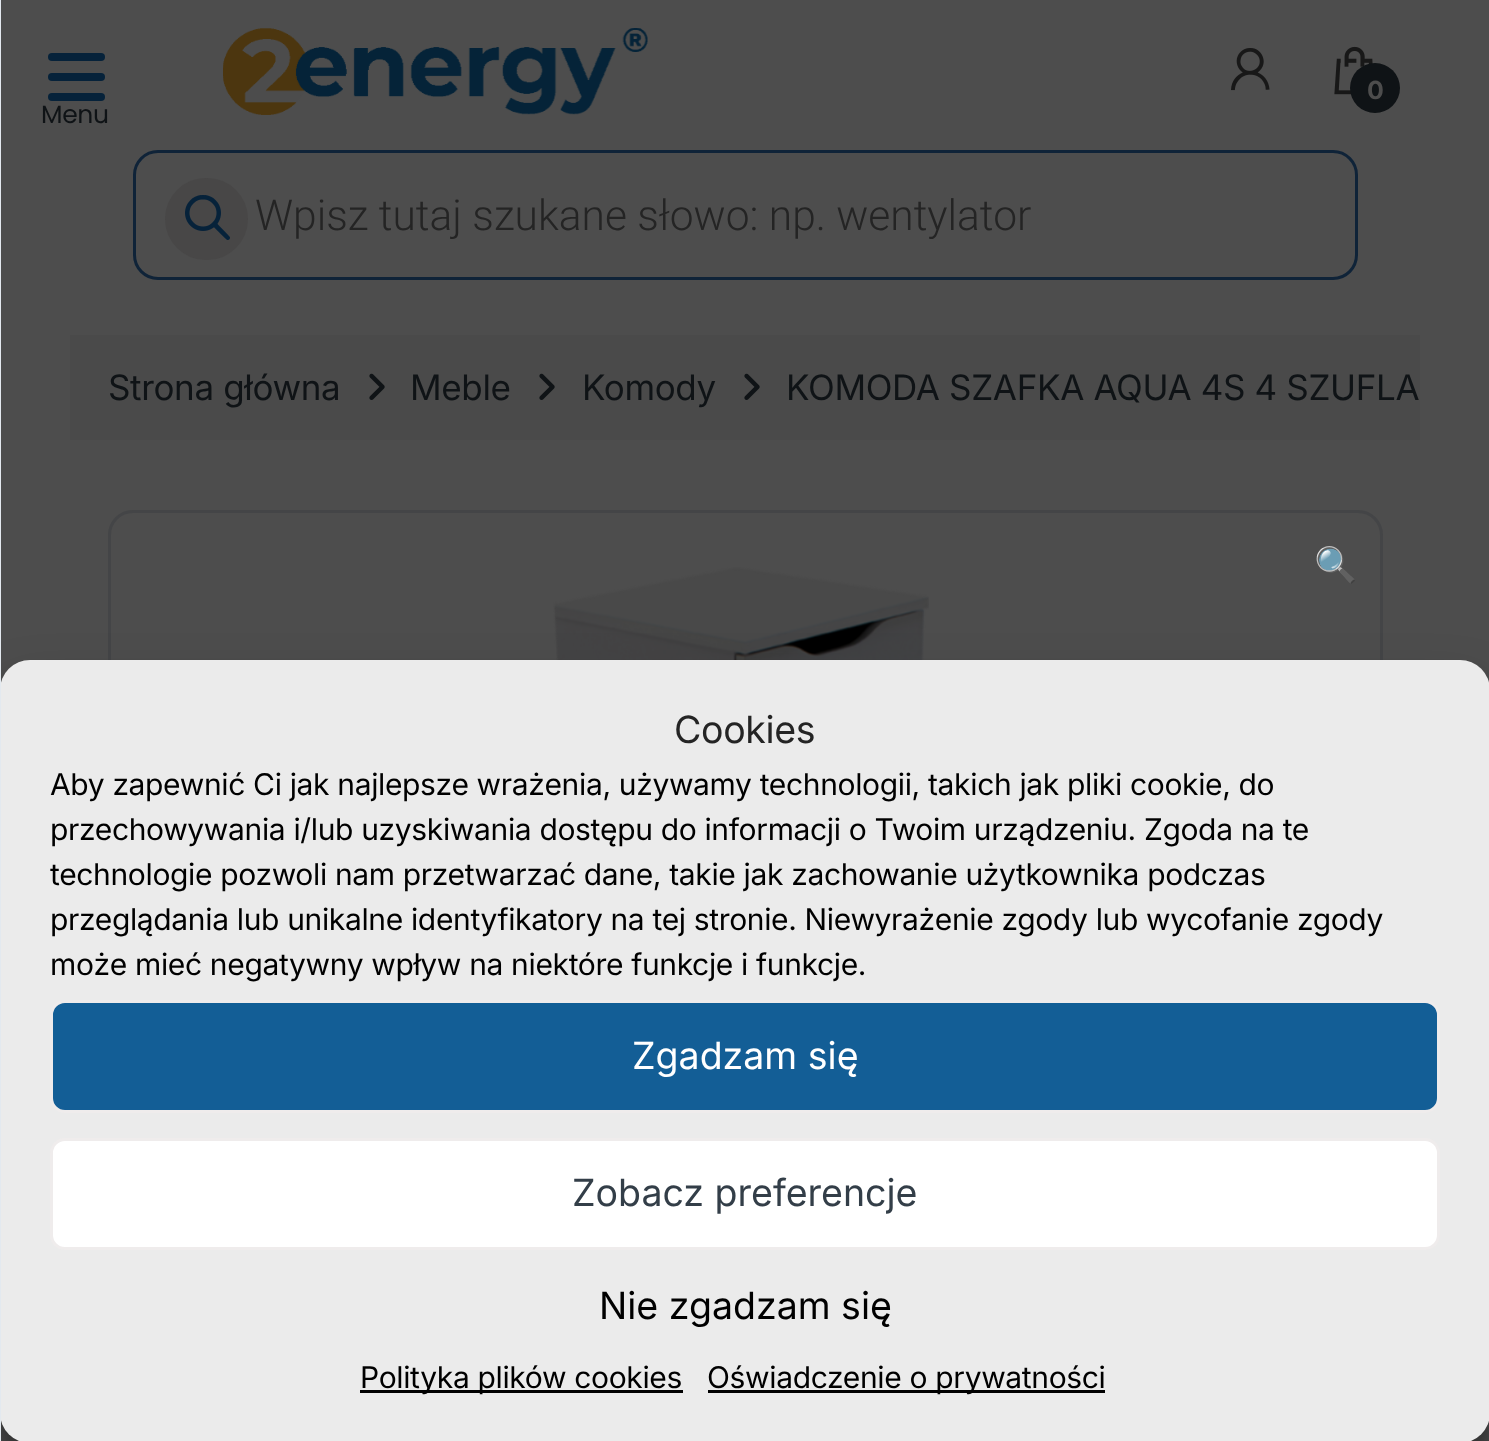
(async () => {
    const canvas = document.querySelector("canvas");
    canvas.width = 1489;
    canvas.height = 1441;
    const context = canvas.getContext("2d");
    context.miterLimit = 4;
    context.fontKerning = "normal";
    function write(s, x, y, font, color) {
        context.font = font;
        context.fillStyle = color;
        context.fillText(s, x, y);
    }
    function block(x, y, w, h, color) {
        context.fillStyle = color;
        context.fillRect(x, y, w, h);
    }
    function card(x, y, w, h, r, color) {
        context.fillStyle = color;
        context.beginPath();
        context.roundRect(x, y, w, h, r);
        context.fill();
    }
    async function photo(src, x, y, w, h) {
        const img = new Image();
        img.src = src;
        await img.decode();
        context.drawImage(img, x, y, w, h);
    }

    block(0, 0, 1489, 1441, "rgb(77, 77, 77)");
    card(48, 73, 57, 8, 4, "rgb(6, 34, 58)");
    card(48, 53, 57, 8, 4, "rgb(6, 34, 58)");
    card(48, 93, 57, 8, 4, "rgb(6, 34, 58)");
    context.letterSpacing = "-0.35px";
    write("Menu", 41, 123, "25px Poppins", "rgb(15, 19, 22)");
    context.beginPath();
    context.roundRect(109.5, 511.5, 1272, 752, 23.5);
    context.strokeStyle = "rgb(68, 69, 71)";
    context.lineWidth = 3;
    context.stroke();
    await photo("media/6.png", 553, 567, 376, 93);
    context.fillStyle = "rgba(0, 0, 0, 0.23)";
    context.filter = "blur(7.5px)";
    context.beginPath();
    context.roundRect(0, 675, 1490, 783, 30);
    context.fill();
    context.filter = "none";
    context.fillStyle = "rgba(0, 0, 0, 0.19)";
    context.filter = "blur(25px)";
    context.beginPath();
    context.roundRect(0, 685, 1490, 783, 30);
    context.fill();
    context.filter = "none";
    card(0, 660, 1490, 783, 30, "rgb(235, 235, 235)");
    block(0, 0, 1, 1441, "rgb(227, 233, 239)");
    await photo("media/1.png", 223, 28, 425, 87);
    await photo("media/2.png", 1231, 48, 39, 43);
    await photo("media/3.png", 1334, 46, 39, 49);
    context.fillStyle = "rgb(15, 19, 22)";
    context.beginPath();
    context.arc(1375, 88, 25, 0, Math.PI * 2);
    context.fill();
    write("0", 1367, 99, "bold 25px Inter", "rgb(77, 77, 77)");
    context.beginPath();
    context.roundRect(134.5, 151.5, 1222, 127, 23.5);
    context.strokeStyle = "rgb(15, 35, 56)";
    context.stroke();
    card(165, 178, 83, 82, 41, "rgb(72, 71, 71)");
    await photo("media/4.png", 185, 195, 45, 45);
    context.letterSpacing = "0px";
    write("Wpisz tutaj szukane słowo: np. wentylator", 255, 230, "300 42.5px Roboto", "rgb(36, 36, 36)");
    block(70, 335, 1350, 105, "rgb(74, 74, 74)");
    context.letterSpacing = "-0.35px";
    write("Strona główna", 108, 400, "35px Inter", "rgb(15, 19, 22)");
    await photo("media/5.png", 369, 373, 16, 27);
    write("Meble", 410, 400, "35px Inter", "rgb(15, 19, 22)");
    await photo("media/5.png", 539, 373, 16, 27);
    write("Komody", 582, 400, "35px Inter", "rgb(15, 19, 22)");
    await photo("media/5.png", 744, 373, 16, 27);
    write("KOMODA SZAFKA AQUA 4S 4 SZUFLA", 786, 400, "35px Inter", "rgb(15, 19, 22)");
    write("🔍", 1314, 577, "35px Noto Color Emoji", "rgb(15, 19, 22)");
    write("Cookies", 674, 743, "37.5px Inter", "rgb(36, 36, 36)");
    write("Aby zapewnić Ci jak najlepsze wrażenia, używamy technologii, takich jak pliki cookie, do", 50, 795, "30px Inter", "rgb(0, 0, 0)");
    write("przechowywania i/lub uzyskiwania dostępu do informacji o Twoim urządzeniu. Zgoda na te", 50, 840, "30px Inter", "rgb(0, 0, 0)");
    write("technologie pozwoli nam przetwarzać dane, takie jak zachowanie użytkownika podczas", 50, 885, "30px Inter", "rgb(0, 0, 0)");
    write("przeglądania lub unikalne identyfikatory na tej stronie. Niewyrażenie zgody lub wycofanie zgody", 50, 930, "30px Inter", "rgb(0, 0, 0)");
    write("może mieć negatywny wpływ na niektóre funkcje i funkcje.", 50, 975, "30px Inter", "rgb(0, 0, 0)");
    context.fillStyle = "rgb(19, 94, 150)";
    context.beginPath();
    context.roundRect(51.5, 1001.5, 1387, 110, 13.5);
    context.fill();
    context.strokeStyle = "rgb(239, 236, 236)";
    context.stroke();
    context.letterSpacing = "0px";
    write("Zgadzam się", 632, 1069, "37.5px Inter", "rgb(255, 255, 255)");
    context.beginPath();
    context.roundRect(51.5, 1139.5, 1387, 109, 13.5);
    context.fill();
    context.stroke();
    write("Zobacz preferencje", 572, 1206, "37.5px Inter", "rgb(51, 62, 72)");
    write("Nie zgadzam się", 599, 1319, "37.5px Inter", "rgb(0, 0, 0)");
    block(360, 1390, 323, 3, "rgb(0, 0, 0)");
    context.letterSpacing = "-0.35px";
    write("Polityka plików cookies", 360, 1388, "30px Inter", "rgb(0, 0, 0)");
    block(708, 1390, 397, 3, "rgb(0, 0, 0)");
    write("Oświadczenie o prywatności", 707, 1388, "30px Inter", "rgb(0, 0, 0)");
})();
